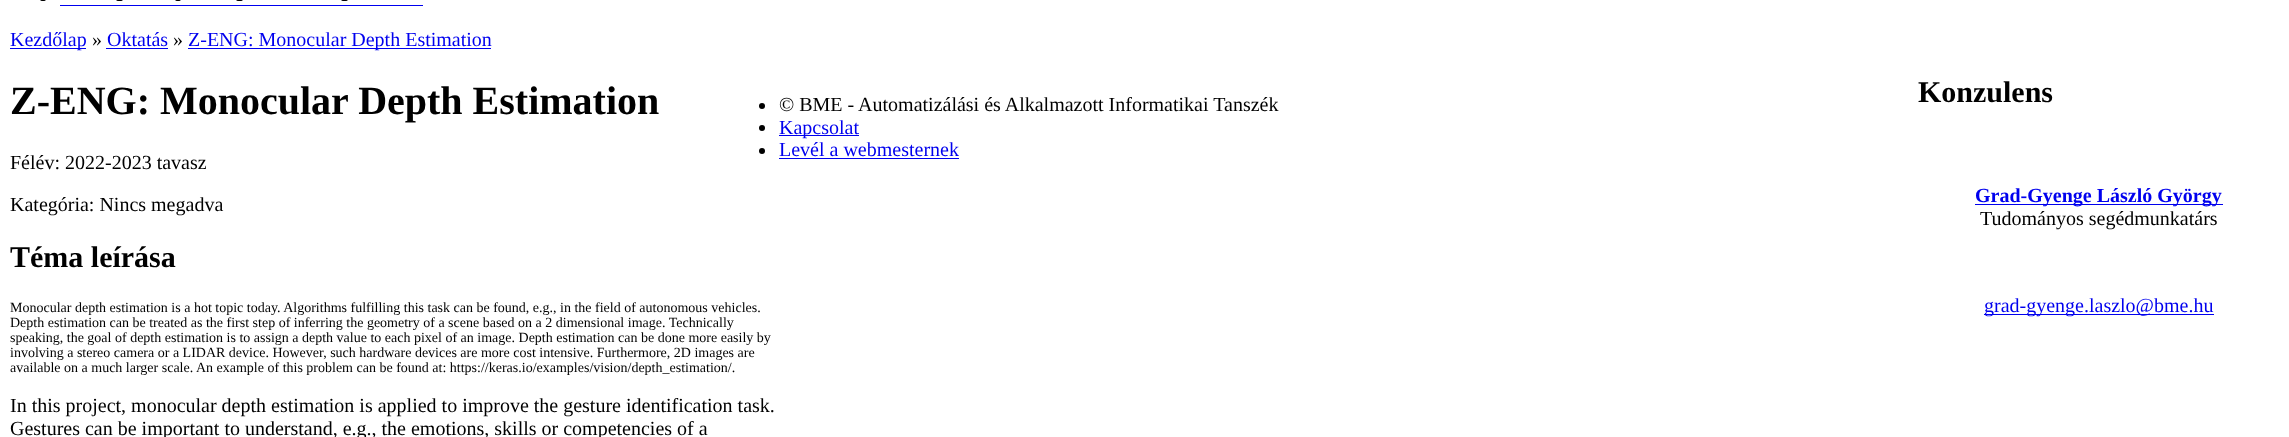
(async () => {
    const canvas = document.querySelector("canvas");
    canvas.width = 2289;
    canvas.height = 437;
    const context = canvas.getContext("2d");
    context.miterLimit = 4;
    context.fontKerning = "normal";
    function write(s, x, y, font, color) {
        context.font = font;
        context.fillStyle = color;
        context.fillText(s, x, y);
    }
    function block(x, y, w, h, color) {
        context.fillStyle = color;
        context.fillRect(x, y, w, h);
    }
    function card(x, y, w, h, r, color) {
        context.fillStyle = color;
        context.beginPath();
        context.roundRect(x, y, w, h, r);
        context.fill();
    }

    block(0, 0, 2289, 437, "rgb(255, 255, 255)");
    card(40, -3, 6, 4, 3, "rgb(0, 0, 0)");
    block(60, 5, 363, 1, "rgb(0, 0, 238)");
    card(116, -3, 7, 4, 3, "rgb(0, 0, 0)");
    card(175, -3, 6, 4, 3, "rgb(0, 0, 0)");
    card(236, -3, 7, 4, 3, "rgb(0, 0, 0)");
    card(341, -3, 7, 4, 3, "rgb(0, 0, 0)");
    block(10, 48, 76, 1, "rgb(0, 0, 238)");
    write("Kezdőlap", 10, 46, "20px Liberation Serif", "rgb(0, 0, 238)");
    write("»", 92, 46, "20px Liberation Serif", "rgb(0, 0, 0)");
    write("Oktatás", 107, 46, "20px Liberation Serif", "rgb(0, 0, 238)");
    block(106, 48, 62, 1, "rgb(0, 0, 238)");
    write("»", 173, 46, "20px Liberation Serif", "rgb(0, 0, 0)");
    block(188, 48, 303, 1, "rgb(0, 0, 238)");
    write("Z-ENG: Monocular Depth Estimation", 188, 46, "20px Liberation Serif", "rgb(0, 0, 238)");
    write("Z-ENG: Monocular Depth Estimation", 10, 114, "bold 40px Liberation Serif", "rgb(0, 0, 0)");
    write("Félév: 2022-2023 tavasz", 10, 169, "20px Liberation Serif", "rgb(0, 0, 0)");
    write("Kategória: Nincs megadva", 10, 211, "20px Liberation Serif", "rgb(0, 0, 0)");
    write("Téma leírása", 10, 267, "bold 30px Liberation Serif", "rgb(0, 0, 0)");
    write("Monocular depth estimation is a hot topic today. Algorithms fulfilling this task can be found, e.g., in the field of autonomous vehicles.", 10, 312, "14px Liberation Serif", "rgb(0, 0, 0)");
    write("Depth estimation can be treated as the first step of inferring the geometry of a scene based on a 2 dimensional image. Technically", 10, 327, "14px Liberation Serif", "rgb(0, 0, 0)");
    write("speaking, the goal of depth estimation is to assign a depth value to each pixel of an image. Depth estimation can be done more easily by", 10, 342, "14px Liberation Serif", "rgb(0, 0, 0)");
    write("involving a stereo camera or a LIDAR device. However, such hardware devices are more cost intensive. Furthermore, 2D images are", 10, 357, "14px Liberation Serif", "rgb(0, 0, 0)");
    write("available on a much larger scale. An example of this problem can be found at: https://keras.io/examples/vision/depth_estimation/.", 10, 372, "14px Liberation Serif", "rgb(0, 0, 0)");
    write("In this project, monocular depth estimation is applied to improve the gesture identification task.", 10, 412, "20px Liberation Serif", "rgb(0, 0, 0)");
    write("Gestures can be important to understand, e.g., the emotions, skills or competencies of a", 10, 435, "20px Liberation Serif", "rgb(0, 0, 0)");
    write("Konzulens", 1918, 102, "bold 30px Liberation Serif", "rgb(0, 0, 0)");
    block(1975, 204, 248, 1, "rgb(0, 0, 238)");
    write("Grad-Gyenge László György", 1975, 202, "bold 20px Liberation Serif", "rgb(0, 0, 238)");
    write("Tudományos segédmunkatárs", 1980, 225, "20px Liberation Serif", "rgb(0, 0, 0)");
    block(1984, 314, 230, 1, "rgb(0, 0, 238)");
    write("grad-gyenge.laszlo@bme.hu", 1984, 312, "20px Liberation Serif", "rgb(0, 0, 238)");
    context.fillStyle = "rgb(0, 0, 0)";
    context.beginPath();
    context.arc(762, 106, 3, 0, Math.PI * 2);
    context.fill();
    write("© BME - Automatizálási és Alkalmazott Informatikai Tanszék", 779, 111, "20px Liberation Serif", "rgb(0, 0, 0)");
    context.beginPath();
    context.arc(762, 128, 3, 0, Math.PI * 2);
    context.fill();
    block(779, 135, 80, 1, "rgb(0, 0, 238)");
    write("Kapcsolat", 779, 134, "20px Liberation Serif", "rgb(0, 0, 238)");
    context.fillStyle = "rgb(0, 0, 0)";
    context.beginPath();
    context.arc(762, 151, 3, 0, Math.PI * 2);
    context.fill();
    write("Levél a webmesternek", 779, 156, "20px Liberation Serif", "rgb(0, 0, 238)");
    block(779, 158, 180, 1, "rgb(0, 0, 238)");
})();
